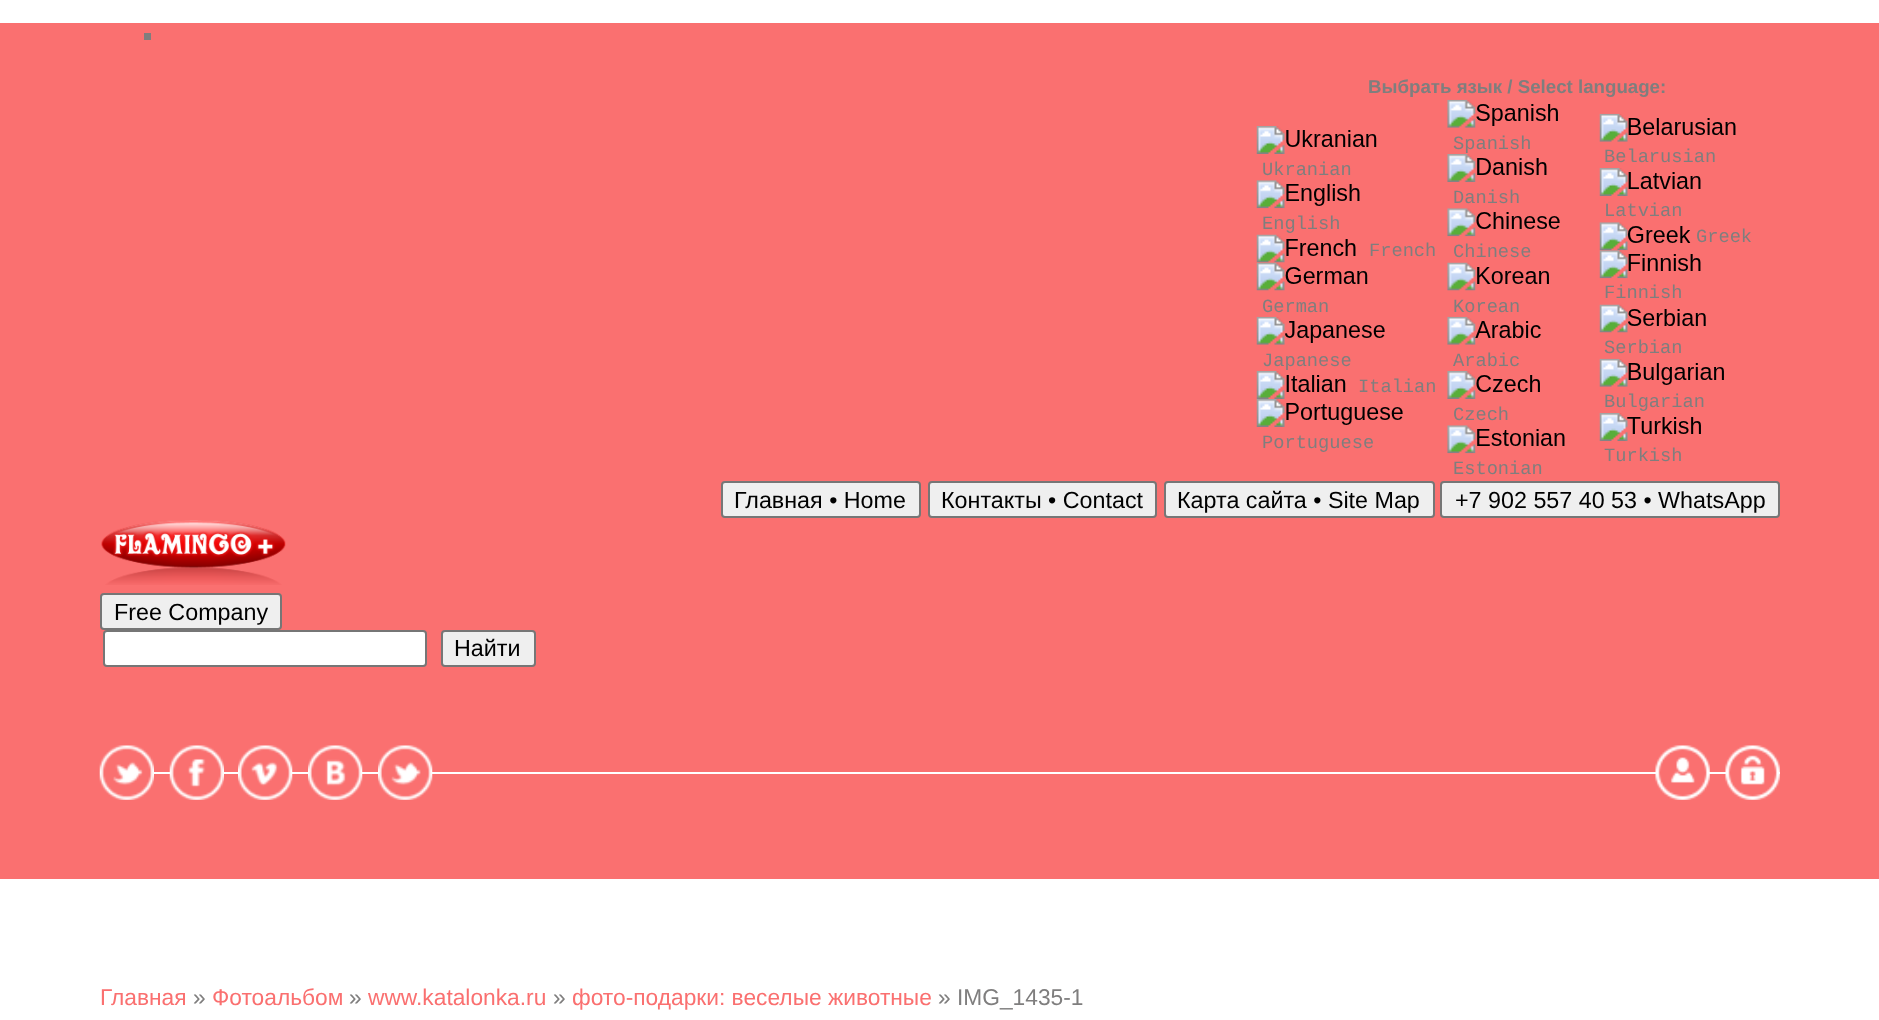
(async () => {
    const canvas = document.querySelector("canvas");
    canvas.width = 1879;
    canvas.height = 1020;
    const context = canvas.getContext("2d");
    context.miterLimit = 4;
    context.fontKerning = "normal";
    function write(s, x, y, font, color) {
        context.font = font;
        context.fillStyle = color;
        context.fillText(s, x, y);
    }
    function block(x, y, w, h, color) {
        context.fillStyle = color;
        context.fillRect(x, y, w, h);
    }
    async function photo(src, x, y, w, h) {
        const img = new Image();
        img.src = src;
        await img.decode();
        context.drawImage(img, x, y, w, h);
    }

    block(0, 0, 1879, 1020, "rgb(255, 255, 255)");
    block(0, 23, 1879, 856, "rgb(250, 112, 112)");
    block(144, 33, 7, 7, "rgb(127, 126, 126)");
    write("Выбрать язык / Select language:", 1368, 93, "bold 18.7px Liberation Sans", "rgb(127, 126, 126)");
    await photo("media/1.png", 1256, 126, 121, 28);
    write("Ukranian", 1262, 175, "18.7px Liberation Mono", "rgb(127, 126, 126)");
    await photo("media/2.png", 1256, 180, 104, 29);
    write("English", 1262, 229, "18.7px Liberation Mono", "rgb(127, 126, 126)");
    await photo("media/3.png", 1256, 234, 100, 29);
    write("French", 1369, 256, "18.7px Liberation Mono", "rgb(127, 126, 126)");
    await photo("media/4.png", 1256, 262, 112, 29);
    write("German", 1262, 312, "18.7px Liberation Mono", "rgb(127, 126, 126)");
    await photo("media/5.png", 1256, 316, 129, 29);
    write("Japanese", 1262, 366, "18.7px Liberation Mono", "rgb(127, 126, 126)");
    await photo("media/6.png", 1256, 371, 90, 28);
    write("Italian", 1358, 392, "18.7px Liberation Mono", "rgb(127, 126, 126)");
    await photo("media/7.png", 1256, 399, 147, 28);
    write("Portuguese", 1262, 448, "18.7px Liberation Mono", "rgb(127, 126, 126)");
    await photo("media/8.png", 1447, 99, 111, 29);
    write("Spanish", 1453, 149, "18.7px Liberation Mono", "rgb(127, 126, 126)");
    await photo("media/9.png", 1447, 154, 100, 28);
    write("Danish", 1453, 203, "18.7px Liberation Mono", "rgb(127, 126, 126)");
    await photo("media/10.png", 1447, 208, 113, 29);
    write("Chinese", 1453, 257, "18.7px Liberation Mono", "rgb(127, 126, 126)");
    await photo("media/11.png", 1447, 262, 102, 29);
    write("Korean", 1453, 312, "18.7px Liberation Mono", "rgb(127, 126, 126)");
    await photo("media/12.png", 1447, 316, 94, 29);
    write("Arabic", 1453, 366, "18.7px Liberation Mono", "rgb(127, 126, 126)");
    await photo("media/13.png", 1447, 371, 93, 28);
    write("Czech", 1453, 420, "18.7px Liberation Mono", "rgb(127, 126, 126)");
    await photo("media/14.png", 1447, 425, 118, 29);
    write("Estonian", 1453, 474, "18.7px Liberation Mono", "rgb(127, 126, 126)");
    await photo("media/15.png", 1599, 113, 137, 29);
    write("Belarusian", 1604, 162, "18.7px Liberation Mono", "rgb(127, 126, 126)");
    await photo("media/16.png", 1599, 168, 102, 28);
    write("Latvian", 1604, 216, "18.7px Liberation Mono", "rgb(127, 126, 126)");
    await photo("media/17.png", 1599, 222, 92, 29);
    write("Greek", 1696, 242, "18.7px Liberation Mono", "rgb(127, 126, 126)");
    await photo("media/18.png", 1599, 250, 102, 29);
    write("Finnish", 1604, 298, "18.7px Liberation Mono", "rgb(127, 126, 126)");
    await photo("media/19.png", 1599, 304, 107, 29);
    write("Serbian", 1604, 353, "18.7px Liberation Mono", "rgb(127, 126, 126)");
    await photo("media/20.png", 1599, 358, 125, 29);
    write("Bulgarian", 1604, 407, "18.7px Liberation Mono", "rgb(127, 126, 126)");
    await photo("media/21.png", 1599, 413, 102, 28);
    write("Turkish", 1604, 461, "18.7px Liberation Mono", "rgb(127, 126, 126)");
    context.fillStyle = "rgb(239, 239, 239)";
    context.beginPath();
    context.roundRect(722, 482, 198, 35, 3);
    context.fill();
    context.strokeStyle = "rgb(118, 118, 118)";
    context.lineWidth = 2;
    context.stroke();
    write("Главная • Home", 734, 508, "23.3px Liberation Sans", "rgb(0, 0, 0)");
    context.fillStyle = "rgb(239, 239, 239)";
    context.beginPath();
    context.roundRect(929, 482, 227, 35, 3);
    context.fill();
    context.stroke();
    write("Контакты • Contact", 941, 508, "23.3px Liberation Sans", "rgb(0, 0, 0)");
    context.fillStyle = "rgb(239, 239, 239)";
    context.beginPath();
    context.roundRect(1165, 482, 269, 35, 3);
    context.fill();
    context.stroke();
    write("Карта сайта • Site Map", 1177, 508, "23.3px Liberation Sans", "rgb(0, 0, 0)");
    context.fillStyle = "rgb(239, 239, 239)";
    context.beginPath();
    context.roundRect(1441, 482, 338, 35, 3);
    context.fill();
    context.stroke();
    write("+7 902 557 40 53 • WhatsApp", 1455, 508, "23.3px Liberation Sans", "rgb(0, 0, 0)");
    await photo("media/22.png", 101, 520, 185, 65);
    context.fillStyle = "rgb(239, 239, 239)";
    context.beginPath();
    context.roundRect(101, 594, 180, 35, 3);
    context.fill();
    context.stroke();
    write("Free Company", 114, 620, "23.3px Liberation Sans", "rgb(0, 0, 0)");
    context.fillStyle = "rgb(255, 255, 255)";
    context.beginPath();
    context.roundRect(104, 631, 322, 35, 3);
    context.fill();
    context.stroke();
    context.fillStyle = "rgb(239, 239, 239)";
    context.beginPath();
    context.roundRect(442, 631, 93, 35, 3);
    context.fill();
    context.stroke();
    write("Найти", 454, 656, "23.3px Liberation Sans", "rgb(0, 0, 0)");
    block(154, 772, 1626, 2, "rgb(255, 255, 255)");
    await photo("media/23.png", 99, 745, 55, 55);
    await photo("media/24.png", 169, 745, 55, 55);
    await photo("media/25.png", 238, 745, 55, 55);
    await photo("media/26.png", 308, 745, 55, 55);
    await photo("media/27.png", 378, 745, 55, 55);
    await photo("media/28.png", 1655, 745, 55, 55);
    await photo("media/29.png", 1725, 745, 55, 55);
    write("Главная", 100, 1005, "22.75px Liberation Sans", "rgb(250, 112, 112)");
    write("»", 193, 1005, "22.75px Liberation Sans", "rgb(127, 126, 126)");
    write("Фотоальбом", 212, 1005, "22.75px Liberation Sans", "rgb(250, 112, 112)");
    write("»", 349, 1005, "22.75px Liberation Sans", "rgb(127, 126, 126)");
    write("www.katalonka.ru", 368, 1005, "22.75px Liberation Sans", "rgb(250, 112, 112)");
    write("»", 553, 1005, "22.75px Liberation Sans", "rgb(127, 126, 126)");
    write("фото-подарки: веселые животные", 572, 1005, "22.75px Liberation Sans", "rgb(250, 112, 112)");
    write("» IMG_1435-1", 938, 1005, "22.75px Liberation Sans", "rgb(127, 126, 126)");
})();
